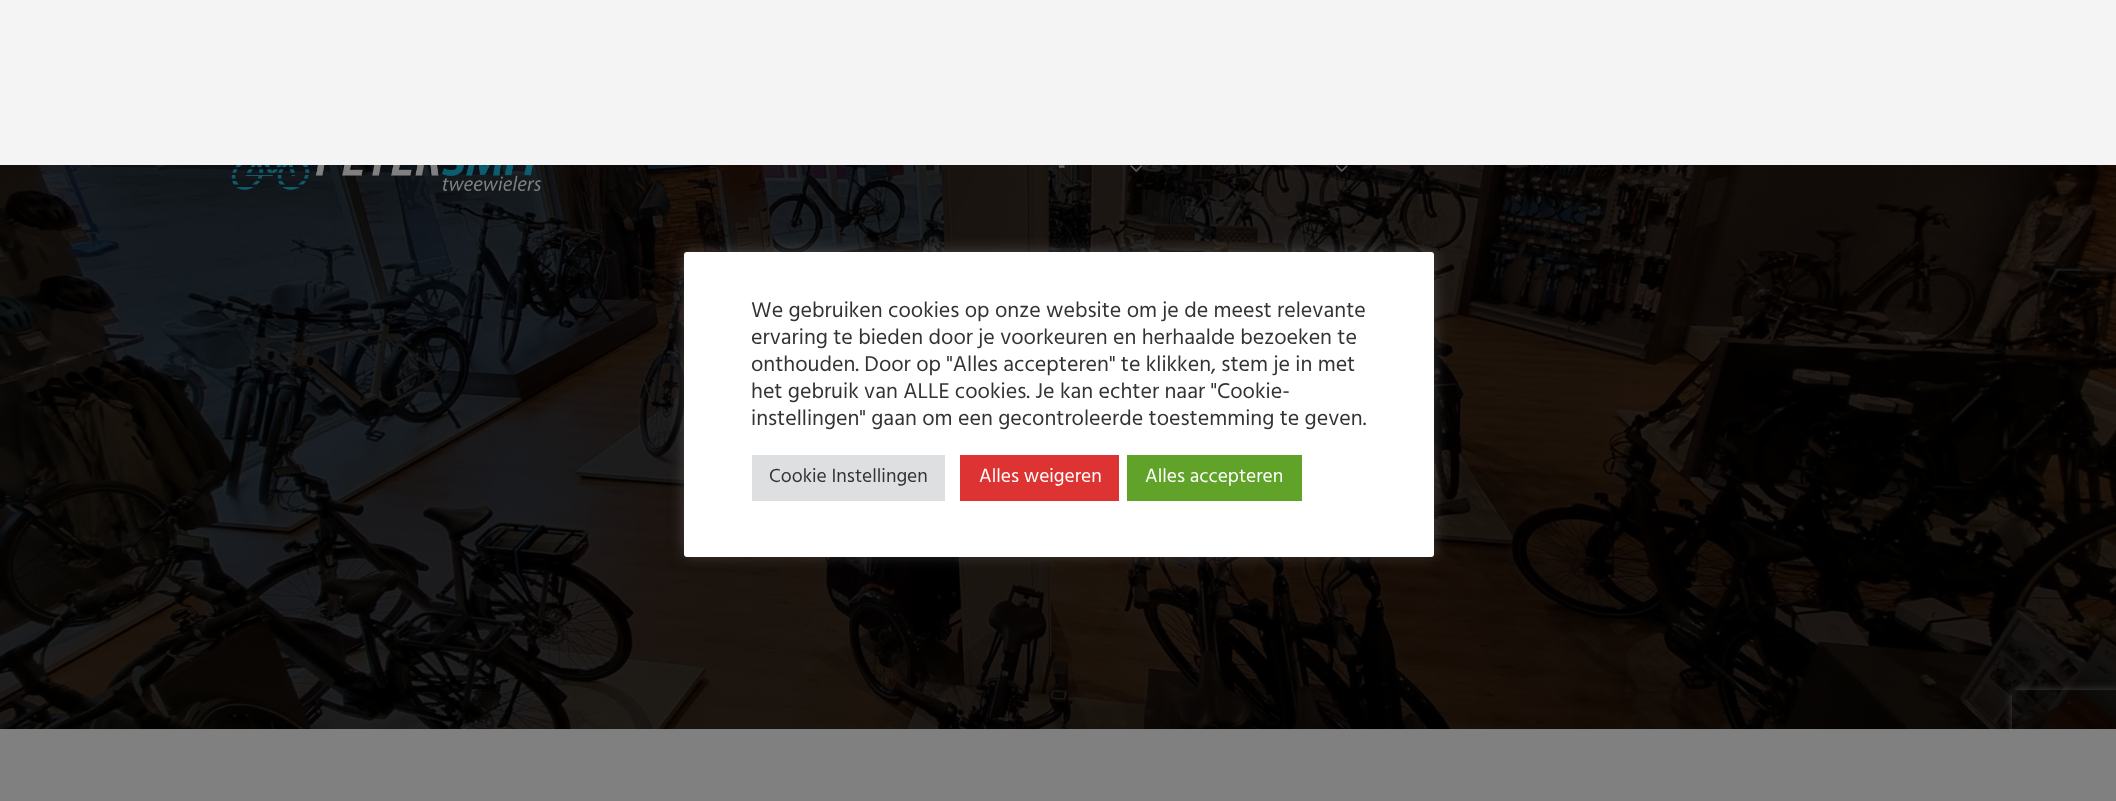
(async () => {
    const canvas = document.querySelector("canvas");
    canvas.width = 2116;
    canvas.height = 801;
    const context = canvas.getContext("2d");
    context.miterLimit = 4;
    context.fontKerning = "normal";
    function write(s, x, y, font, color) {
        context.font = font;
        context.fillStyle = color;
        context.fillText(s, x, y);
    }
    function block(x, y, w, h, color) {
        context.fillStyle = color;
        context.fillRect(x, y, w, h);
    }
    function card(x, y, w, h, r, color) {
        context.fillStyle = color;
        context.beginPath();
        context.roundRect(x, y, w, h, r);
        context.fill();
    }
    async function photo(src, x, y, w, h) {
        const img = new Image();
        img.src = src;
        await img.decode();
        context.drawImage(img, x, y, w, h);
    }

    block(0, 0, 2116, 801, "rgb(255, 255, 255)");
    block(0, 0, 2116, 165, "rgb(244, 244, 244)");
    await photo("media/1.png", 0, 165, 2116, 564);
    await photo("media/2.png", 231, 165, 310, 27);
    write("-", 1058, 172, "bold 21px Hind", "rgb(96, 95, 95)");
    await photo("media/3.png", 1130, 165, 12, 7);
    await photo("media/4.png", 1336, 165, 12, 7);
    context.fillStyle = "rgba(172, 171, 171, 0.3)";
    context.filter = "blur(7.5px)";
    context.beginPath();
    context.roundRect(684, 251, 750, 304, 3);
    context.fill();
    context.filter = "none";
    card(684, 252, 750, 305, 3, "rgb(255, 255, 255)");
    write("We gebruiken cookies op onze website om je de meest relevante", 751, 317, "22px Hind", "rgb(51, 51, 51)");
    write("ervaring te bieden door je voorkeuren en herhaalde bezoeken te", 751, 344, "22px Hind", "rgb(51, 51, 51)");
    write("onthouden. Door op \"Alles accepteren\" te klikken, stem je in met", 751, 371, "22px Hind", "rgb(51, 51, 51)");
    write("het gebruik van ALLE cookies. Je kan echter naar \"Cookie-", 751, 398, "22px Hind", "rgb(51, 51, 51)");
    write("instellingen\" gaan om een gecontroleerde toestemming te geven.", 751, 425, "22px Hind", "rgb(51, 51, 51)");
    block(752, 455, 193, 46, "rgb(222, 223, 224)");
    write("Cookie Instellingen", 769, 482, "19.5px Hind", "rgb(51, 51, 51)");
    block(960, 455, 159, 46, "rgb(221, 51, 51)");
    write("Alles weigeren", 979, 482, "19.5px Hind", "rgb(255, 255, 255)");
    block(1127, 455, 175, 46, "rgb(97, 162, 41)");
    write("Alles accepteren", 1145, 482, "19.5px Hind", "rgb(255, 255, 255)");
    context.save();
    context.beginPath();
    context.moveTo(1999, 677);
    context.lineTo(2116, 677);
    context.lineTo(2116, 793);
    context.lineTo(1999, 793);
    context.closePath();
    context.moveTo(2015, 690);
    context.lineTo(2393, 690);
    context.bezierCurveTo(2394.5, 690, 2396, 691.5, 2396, 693);
    context.lineTo(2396, 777);
    context.bezierCurveTo(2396, 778.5, 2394.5, 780, 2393, 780);
    context.lineTo(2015, 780);
    context.bezierCurveTo(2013.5, 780, 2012, 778.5, 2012, 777);
    context.lineTo(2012, 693);
    context.bezierCurveTo(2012, 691.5, 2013.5, 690, 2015, 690);
    context.closePath();
    context.clip("evenodd");
    context.fillStyle = "rgb(64, 64, 64)";
    context.filter = "blur(4px)";
    context.beginPath();
    context.roundRect(2012, 690, 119, 90, 3);
    context.fill();
    context.filter = "none";
    context.restore();
    block(0, 729, 2116, 72, "rgb(128, 128, 128)");
})();
